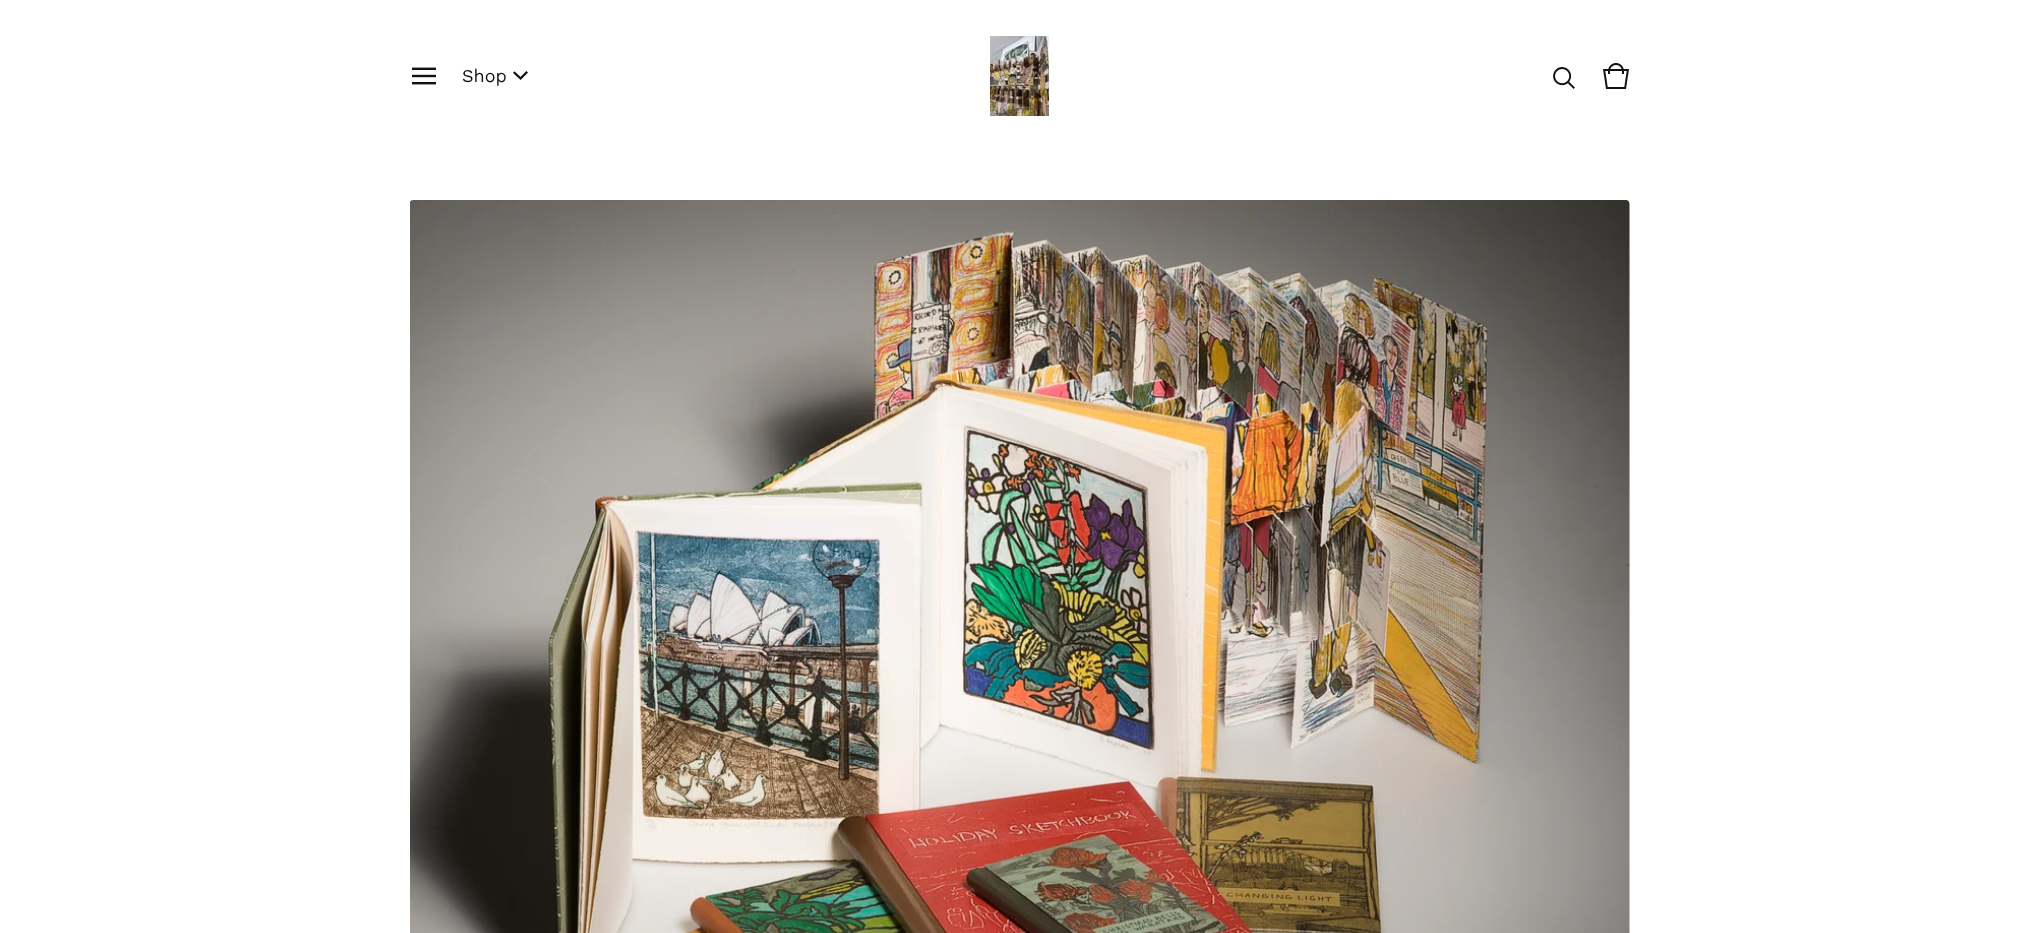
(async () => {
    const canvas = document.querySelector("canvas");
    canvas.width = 2039;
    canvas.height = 933;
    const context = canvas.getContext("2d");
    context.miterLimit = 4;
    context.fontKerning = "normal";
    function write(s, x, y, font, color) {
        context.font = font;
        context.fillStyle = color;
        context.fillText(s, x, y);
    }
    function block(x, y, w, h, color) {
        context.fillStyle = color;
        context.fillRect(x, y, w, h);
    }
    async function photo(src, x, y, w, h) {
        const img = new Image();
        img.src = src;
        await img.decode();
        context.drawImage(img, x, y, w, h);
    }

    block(0, 0, 2039, 933, "rgb(255, 255, 255)");
    await photo("media/1.png", 412, 67, 24, 18);
    write("Shop", 462, 82, "18px Work Sans", "rgb(18, 18, 18)");
    await photo("media/2.png", 513, 71, 15, 9);
    await photo("media/3.png", 990, 36, 59, 80);
    await photo("media/4.png", 1553, 67, 22, 22);
    await photo("media/5.png", 1603, 63, 26, 26);
    await photo("media/6.png", 410, 200, 1220, 733);
})();
